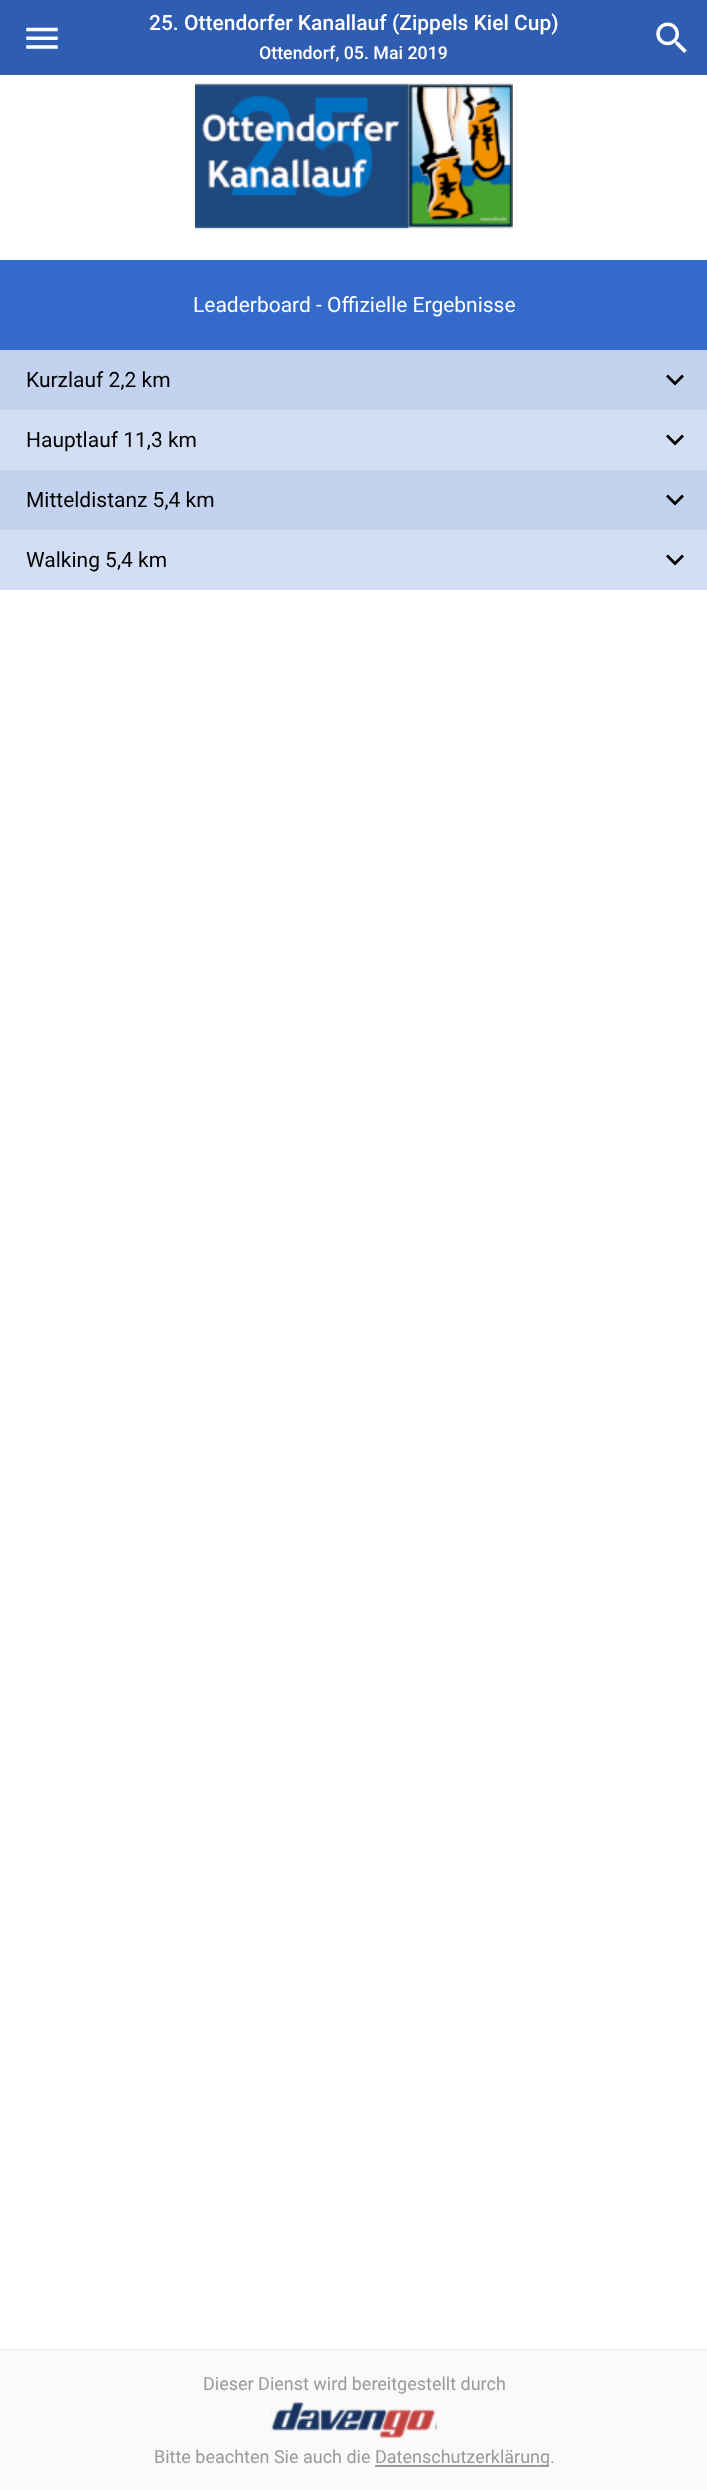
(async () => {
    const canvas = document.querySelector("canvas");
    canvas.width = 707;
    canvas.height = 2490;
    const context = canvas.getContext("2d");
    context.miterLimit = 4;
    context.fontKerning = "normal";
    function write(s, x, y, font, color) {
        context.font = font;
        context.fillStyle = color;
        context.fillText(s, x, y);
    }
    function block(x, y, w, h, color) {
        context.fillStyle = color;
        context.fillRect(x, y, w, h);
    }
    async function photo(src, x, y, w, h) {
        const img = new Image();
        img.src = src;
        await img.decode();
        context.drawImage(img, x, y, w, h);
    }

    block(0, 0, 707, 2490, "rgb(255, 255, 255)");
    block(0, 0, 707, 75, "rgb(46, 93, 177)");
    write("25. Ottendorfer Kanallauf (Zippels Kiel Cup)", 149, 30, "500 21px Roboto", "rgb(255, 255, 255)");
    write("Ottendorf, 05. Mai 2019", 259, 59, "500 17.8px Roboto", "rgb(255, 255, 255)");
    await photo("media/1.png", 195, 83, 318, 146);
    await photo("media/2.png", 26, 27, 32, 22);
    await photo("media/3.png", 656, 22, 31, 31);
    block(0, 260, 707, 90, "rgb(52, 106, 202)");
    write("Leaderboard - Offizielle Ergebnisse", 193, 312, "21px Roboto", "rgb(255, 255, 255)");
    block(0, 350, 707, 60, "rgb(194, 210, 239)");
    write("Kurzlauf 2,2 km", 26, 387, "21px Roboto", "rgb(0, 0, 0)");
    context.beginPath();
    context.moveTo(668, 374.5);
    context.lineTo(675, 381.5);
    context.lineTo(682, 374.5);
    context.lineTo(684, 376.5);
    context.lineTo(675, 385.5);
    context.lineTo(666, 376.5);
    context.closePath();
    context.fill();
    block(0, 410, 707, 60, "rgb(210, 222, 243)");
    write("Hauptlauf 11,3 km", 26, 447, "21px Roboto", "rgb(0, 0, 0)");
    context.beginPath();
    context.moveTo(668, 434.5);
    context.lineTo(675, 441.5);
    context.lineTo(682, 434.5);
    context.lineTo(684, 436.5);
    context.lineTo(675, 445.5);
    context.lineTo(666, 436.5);
    context.closePath();
    context.fill();
    block(0, 470, 707, 60, "rgb(194, 210, 239)");
    write("Mitteldistanz 5,4 km", 26, 507, "21px Roboto", "rgb(0, 0, 0)");
    context.beginPath();
    context.moveTo(668, 494.5);
    context.lineTo(675, 501.5);
    context.lineTo(682, 494.5);
    context.lineTo(684, 496.5);
    context.lineTo(675, 505.5);
    context.lineTo(666, 496.5);
    context.closePath();
    context.fill();
    block(0, 530, 707, 60, "rgb(210, 222, 243)");
    write("Walking 5,4 km", 26, 567, "21px Roboto", "rgb(0, 0, 0)");
    context.beginPath();
    context.moveTo(668, 554.5);
    context.lineTo(675, 561.5);
    context.lineTo(682, 554.5);
    context.lineTo(684, 556.5);
    context.lineTo(675, 565.5);
    context.lineTo(666, 556.5);
    context.closePath();
    context.fill();
    block(0, 2351, 707, 139, "rgb(250, 250, 250)");
    block(0, 2349, 707, 2, "rgb(243, 243, 243)");
    write("Dieser Dienst wird bereitgestellt durch", 203, 2390, "18px Roboto", "rgb(153, 153, 153)");
    await photo("media/4.png", 271, 2401, 166, 37);
    write("Bitte beachten Sie auch die", 154, 2463, "18px Roboto", "rgb(153, 153, 153)");
    block(375, 2465, 174, 2, "rgb(153, 153, 153)");
    write("Datenschutzerklärung.", 375, 2463, "18px Roboto", "rgb(153, 153, 153)");
})();
